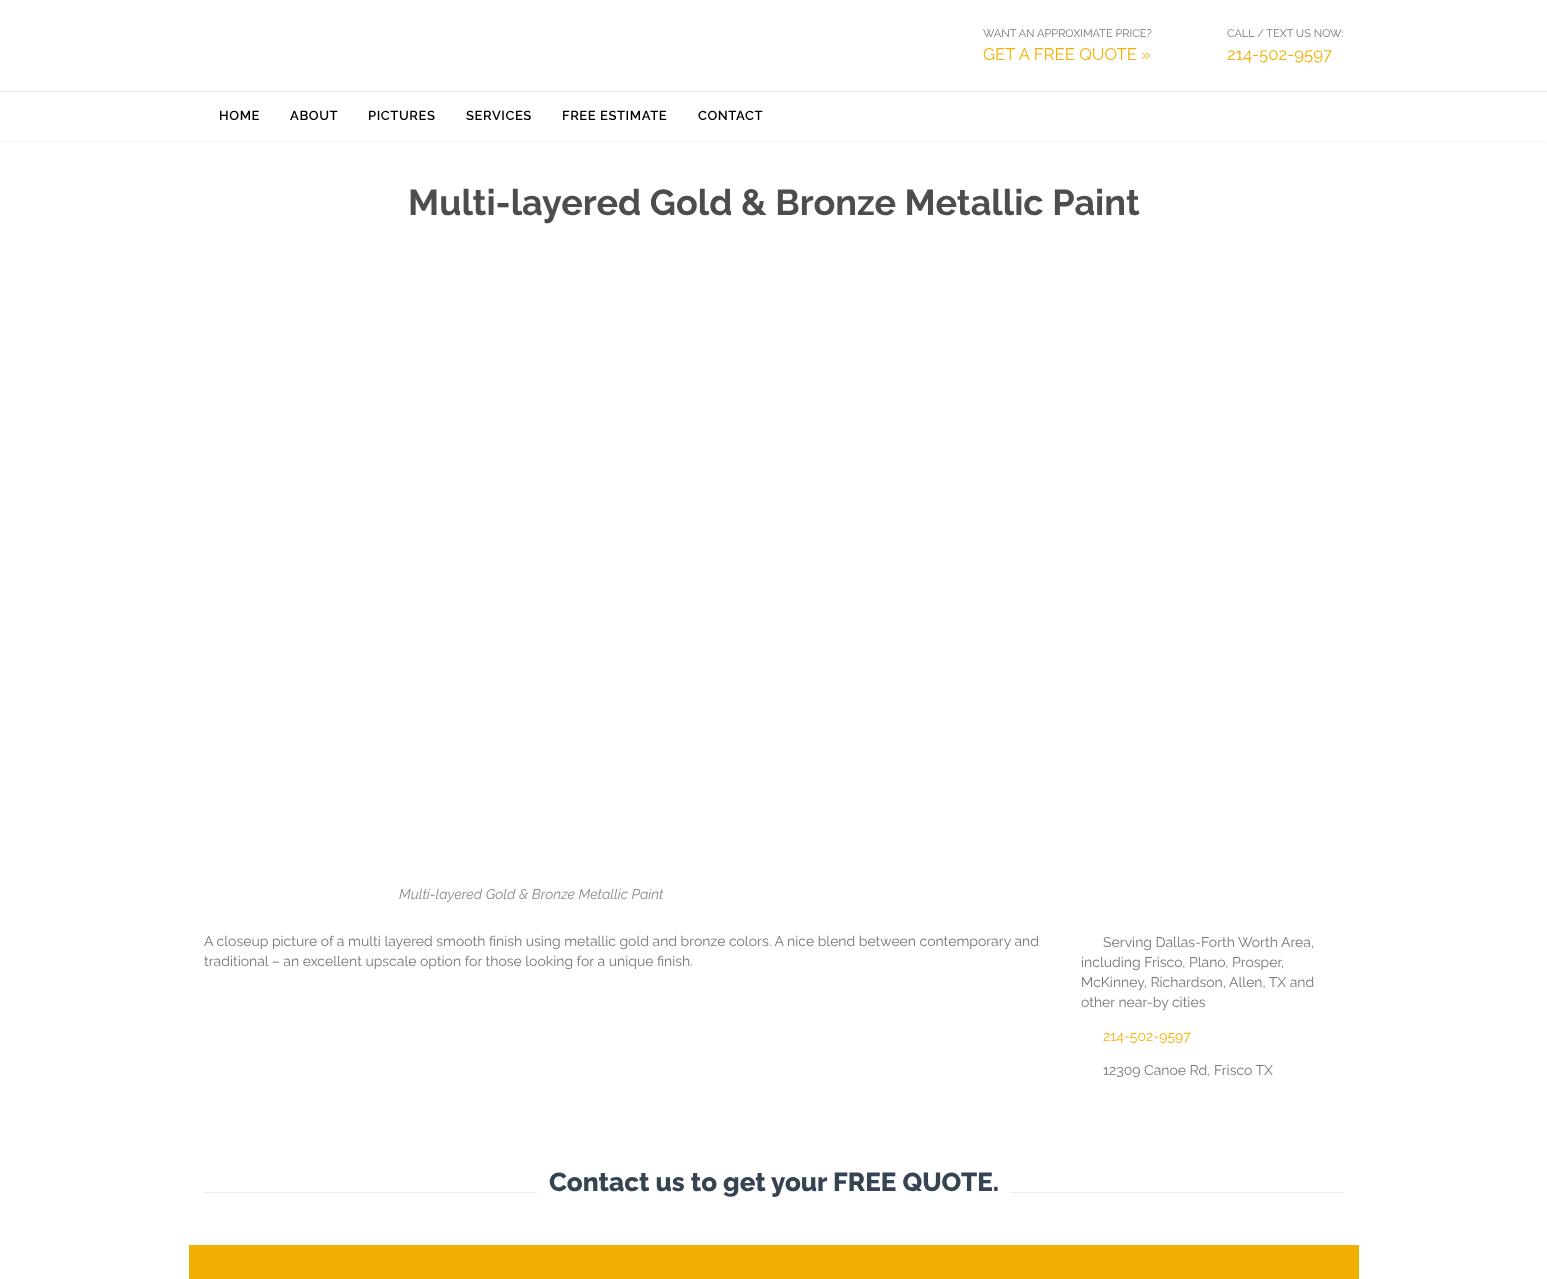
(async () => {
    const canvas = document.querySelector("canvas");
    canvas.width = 1547;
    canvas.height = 1279;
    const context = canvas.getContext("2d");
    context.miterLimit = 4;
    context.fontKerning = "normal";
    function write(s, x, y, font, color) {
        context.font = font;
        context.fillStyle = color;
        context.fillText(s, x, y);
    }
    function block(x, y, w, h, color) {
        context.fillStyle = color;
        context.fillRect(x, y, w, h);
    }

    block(0, 0, 1547, 1279, "rgb(255, 255, 255)");
    context.fillStyle = "rgba(0, 0, 0, 0.04)";
    context.filter = "blur(1px)";
    context.beginPath();
    context.rect(0, 2, 1547, 141);
    context.fill();
    context.filter = "none";
    block(0, 1, 1547, 90, "rgb(255, 255, 255)");
    write("WANT AN APPROXIMATE PRICE?", 983, 37, "11px Raleway", "rgb(118, 118, 118)");
    write("GET A FREE QUOTE »", 983, 60, "16.75px Raleway", "rgb(241, 176, 2)");
    write("CALL / TEXT US NOW:", 1227, 37, "11px Raleway", "rgb(118, 118, 118)");
    write("214-502-9597", 1227, 60, "16.75px Raleway", "rgb(241, 176, 2)");
    block(0, 92, 1547, 49, "rgb(255, 255, 255)");
    block(0, 91, 1547, 1, "rgb(234, 234, 235)");
    context.letterSpacing = "0.6px";
    write("HOME", 219, 120, "600 13px Raleway", "rgb(0, 0, 0)");
    write("ABOUT", 290, 120, "600 13px Raleway", "rgb(0, 0, 0)");
    write("PICTURES", 368, 120, "600 13px Raleway", "rgb(0, 0, 0)");
    write("SERVICES", 466, 120, "600 13px Raleway", "rgb(0, 0, 0)");
    write("FREE ESTIMATE", 562, 120, "600 13px Raleway", "rgb(0, 0, 0)");
    write("CONTACT", 698, 120, "600 13px Raleway", "rgb(0, 0, 0)");
    context.letterSpacing = "0px";
    write("Multi-layered Gold & Bronze Metallic Paint", 408, 215, "bold 36px Raleway", "rgb(77, 77, 77)");
    write("Multi-layered Gold & Bronze Metallic Paint", 399, 899, "italic 100 14px Raleway", "rgb(137, 137, 137)");
    write("A closeup picture of a multi layered smooth finish using metallic gold and bronze colors. A nice blend between contemporary and", 204, 946, "14px Raleway", "rgb(118, 118, 118)");
    write("traditional – an excellent upscale option for those looking for a unique finish.", 204, 966, "14px Raleway", "rgb(118, 118, 118)");
    write("Serving Dallas-Forth Worth Area,", 1103, 947, "14px Raleway", "rgb(118, 118, 118)");
    write("including Frisco, Plano, Prosper,", 1081, 967, "14px Raleway", "rgb(118, 118, 118)");
    write("McKinney, Richardson, Allen, TX and", 1081, 987, "14px Raleway", "rgb(118, 118, 118)");
    write("other near-by cities", 1081, 1007, "14px Raleway", "rgb(118, 118, 118)");
    write("214-502-9597", 1103, 1041, "14px Raleway", "rgb(241, 176, 2)");
    write("12309 Canoe Rd, Frisco TX", 1103, 1075, "14px Raleway", "rgb(118, 118, 118)");
    block(204, 1192, 333, 1, "rgb(237, 237, 237)");
    write("Contact us to get your FREE QUOTE.", 549, 1191, "800 26px Raleway", "rgb(54, 67, 82)");
    block(1010, 1192, 334, 1, "rgb(237, 237, 237)");
    block(189, 1245, 1170, 34, "rgb(241, 176, 2)");
})();
